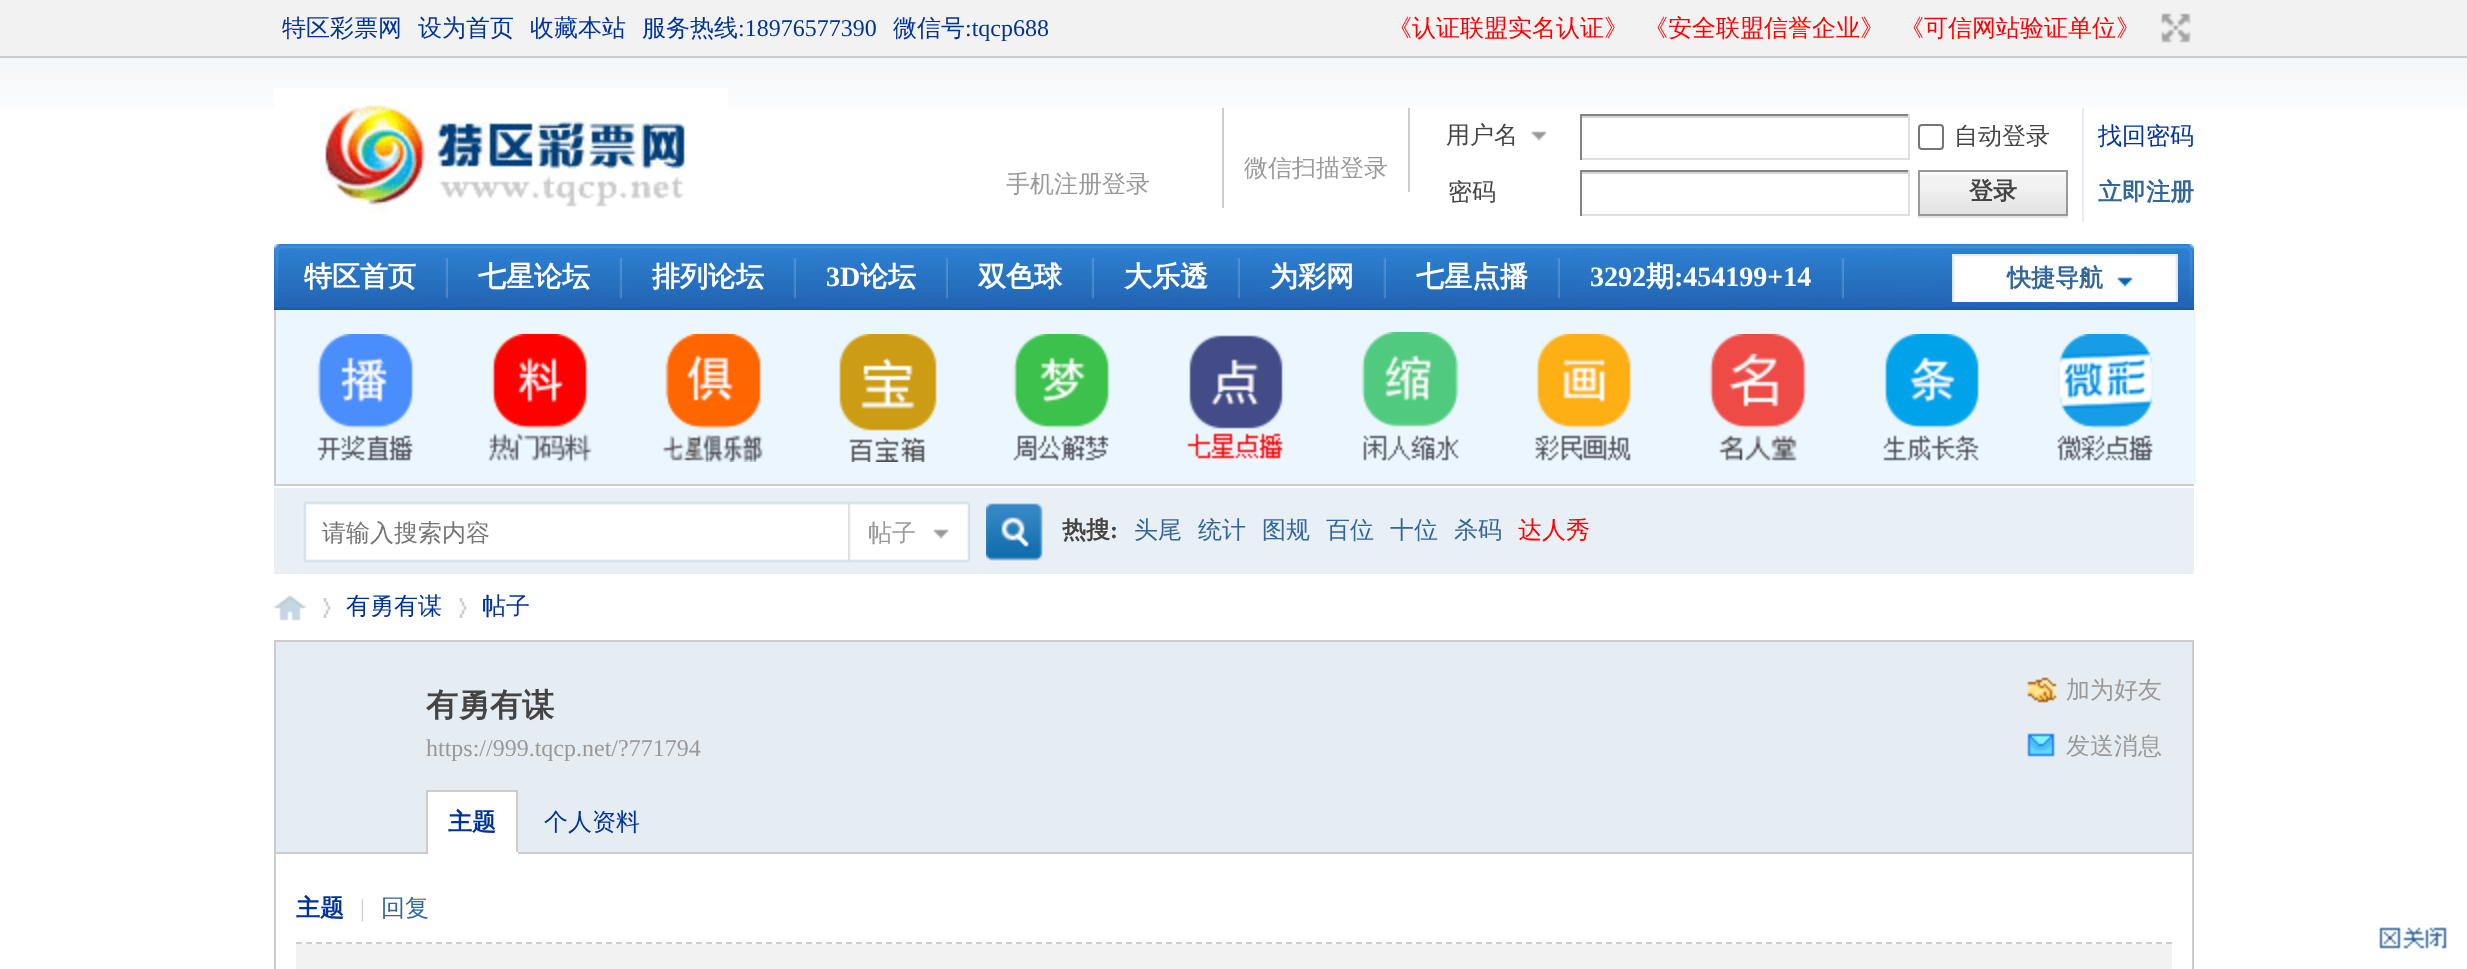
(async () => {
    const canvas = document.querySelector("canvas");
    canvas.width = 2467;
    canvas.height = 969;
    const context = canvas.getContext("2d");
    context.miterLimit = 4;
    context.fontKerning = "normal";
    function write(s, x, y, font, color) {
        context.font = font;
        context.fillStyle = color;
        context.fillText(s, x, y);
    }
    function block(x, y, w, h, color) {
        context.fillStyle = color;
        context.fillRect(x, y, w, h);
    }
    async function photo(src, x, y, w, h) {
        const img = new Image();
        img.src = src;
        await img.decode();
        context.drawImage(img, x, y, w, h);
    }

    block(0, 0, 2467, 969, "rgb(255, 255, 255)");
    await photo("media/1.png", 0, 58, 2467, 50);
    block(0, 0, 2467, 56, "rgb(242, 242, 242)");
    block(0, 56, 2467, 2, "rgb(205, 205, 205)");
    write("特区彩票网", 282, 36, "500 24px WenQuanYi Zen Hei", "rgb(0, 51, 153)");
    write("设为首页", 418, 36, "500 24px WenQuanYi Zen Hei", "rgb(0, 51, 153)");
    write("收藏本站", 530, 36, "500 24px WenQuanYi Zen Hei", "rgb(0, 51, 153)");
    write("服务热线", 642, 36, "500 24px WenQuanYi Zen Hei", "rgb(0, 51, 153)");
    write(":18976577390", 738, 36, "24px Liberation Serif", "rgb(0, 51, 153)");
    write("微信号", 893, 36, "500 24px WenQuanYi Zen Hei", "rgb(0, 51, 153)");
    write(":tqcp688", 965, 36, "24px Liberation Serif", "rgb(0, 51, 153)");
    write("《认证联盟实名认证》", 1388, 36, "500 24px WenQuanYi Zen Hei", "rgb(255, 0, 0)");
    write("《安全联盟信誉企业》", 1644, 36, "500 24px WenQuanYi Zen Hei", "rgb(255, 0, 0)");
    write("《可信网站验证单位》", 1900, 36, "500 24px WenQuanYi Zen Hei", "rgb(255, 0, 0)");
    await photo("media/2.png", 2160, 13, 31, 30);
    await photo("media/3.png", 274, 88, 454, 125);
    block(1408, 108, 2, 84, "rgb(205, 205, 205)");
    write("微信扫描登录", 1244, 176, "500 24px WenQuanYi Zen Hei", "rgb(153, 153, 153)");
    await photo("media/4.png", 1531, 131, 16, 10);
    write("用户名", 1446, 143, "500 24px WenQuanYi Zen Hei", "rgb(68, 68, 68)");
    block(1580, 116, 330, 2, "rgb(212, 212, 212)");
    block(1580, 114, 330, 2, "rgb(132, 132, 132)");
    block(1908, 114, 2, 46, "rgb(224, 224, 224)");
    block(1580, 158, 330, 2, "rgb(224, 224, 224)");
    block(1580, 114, 2, 46, "rgb(132, 132, 132)");
    context.beginPath();
    context.roundRect(1919, 125, 24, 24, 3);
    context.strokeStyle = "rgb(118, 118, 118)";
    context.lineWidth = 2;
    context.stroke();
    write("自动登录", 1954, 144, "500 24px WenQuanYi Zen Hei", "rgb(68, 68, 68)");
    write("找回密码", 2098, 144, "500 24px WenQuanYi Zen Hei", "rgb(0, 51, 153)");
    write("密码", 1448, 200, "500 24px WenQuanYi Zen Hei", "rgb(68, 68, 68)");
    block(1580, 172, 330, 2, "rgb(212, 212, 212)");
    block(1580, 170, 330, 2, "rgb(132, 132, 132)");
    block(1908, 170, 2, 46, "rgb(224, 224, 224)");
    block(1580, 214, 330, 2, "rgb(224, 224, 224)");
    block(1580, 170, 2, 46, "rgb(132, 132, 132)");
    block(2082, 108, 2, 114, "rgb(229, 237, 242)");
    block(1918, 216, 150, 2, "rgb(229, 229, 229)");
    await photo("media/5.png", 1920, 172, 146, 42);
    context.strokeStyle = "rgb(153, 153, 153)";
    context.strokeRect(1919, 171, 148, 44);
    write("登录", 1969, 199, "bold 24px WenQuanYi Zen Hei", "rgb(68, 68, 68)");
    write("立即注册", 2098, 200, "bold 24px WenQuanYi Zen Hei", "rgb(51, 102, 153)");
    block(1222, 108, 2, 100, "rgb(205, 205, 205)");
    write("手机注册登录", 1006, 192, "500 24px WenQuanYi Zen Hei", "rgb(153, 153, 153)");
    await photo("media/6.png", 274, 244, 1920, 66);
    await photo("media/7.png", 445, 257, 3, 42);
    write("特区首页", 304, 286, "bold 28px WenQuanYi Zen Hei", "rgb(255, 255, 255)");
    await photo("media/8.png", 619, 257, 3, 42);
    write("七星论坛", 478, 286, "bold 28px WenQuanYi Zen Hei", "rgb(255, 255, 255)");
    await photo("media/9.png", 793, 257, 3, 42);
    write("排列论坛", 652, 286, "bold 28px WenQuanYi Zen Hei", "rgb(255, 255, 255)");
    await photo("media/10.png", 945, 257, 3, 42);
    write("3D", 826, 286, "bold 28px Liberation Serif", "rgb(255, 255, 255)");
    write("论坛", 860, 286, "bold 28px WenQuanYi Zen Hei", "rgb(255, 255, 255)");
    await photo("media/11.png", 1091, 257, 3, 42);
    write("双色球", 978, 286, "bold 28px WenQuanYi Zen Hei", "rgb(255, 255, 255)");
    await photo("media/12.png", 1237, 257, 3, 42);
    write("大乐透", 1124, 286, "bold 28px WenQuanYi Zen Hei", "rgb(255, 255, 255)");
    await photo("media/13.png", 1383, 257, 3, 42);
    write("为彩网", 1270, 286, "bold 28px WenQuanYi Zen Hei", "rgb(255, 255, 255)");
    await photo("media/12.png", 1557, 257, 3, 42);
    write("七星点播", 1416, 286, "bold 28px WenQuanYi Zen Hei", "rgb(255, 255, 255)");
    await photo("media/14.png", 1841, 257, 3, 42);
    write("3292", 1590, 286, "bold 28px Liberation Serif", "rgb(255, 255, 255)");
    write("期", 1646, 286, "bold 28px WenQuanYi Zen Hei", "rgb(255, 255, 255)");
    write(":454199+14", 1674, 286, "bold 28px Liberation Serif", "rgb(255, 255, 255)");
    await photo("media/15.png", 1952, 254, 226, 48);
    write("快捷导航", 2007, 286, "bold 24px WenQuanYi Zen Hei", "rgb(51, 102, 153)");
    block(274, 484, 1920, 2, "rgb(205, 205, 205)");
    block(274, 310, 2, 176, "rgb(205, 205, 205)");
    block(276, 310, 1920, 174, "rgb(236, 246, 255)");
    await photo("media/16.png", 317, 334, 97, 127);
    await photo("media/17.png", 488, 334, 104, 128);
    await photo("media/18.png", 662, 334, 101, 128);
    await photo("media/19.png", 839, 334, 98, 128);
    await photo("media/20.png", 1013, 334, 98, 127);
    await photo("media/21.png", 1187, 335, 96, 124);
    await photo("media/22.png", 1361, 332, 98, 129);
    await photo("media/23.png", 1535, 334, 97, 127);
    await photo("media/24.png", 1709, 334, 98, 127);
    await photo("media/25.png", 1883, 334, 97, 127);
    await photo("media/26.png", 2057, 334, 97, 127);
    block(274, 488, 1920, 86, "rgb(232, 239, 245)");
    await photo("media/27.png", 303, 501, 13, 62);
    await photo("media/28.png", 316, 501, 532, 62);
    write("请输入搜索内容", 322, 541, "500 24px WenQuanYi Zen Hei", "rgb(117, 117, 117)");
    await photo("media/29.png", 848, 501, 122, 62);
    write("帖子", 868, 541, "500 24px WenQuanYi Zen Hei", "rgb(153, 153, 153)");
    await photo("media/30.png", 986, 503, 57, 58);
    write("热搜", 1062, 538, "bold 24px WenQuanYi Zen Hei", "rgb(68, 68, 68)");
    write(":", 1110, 538, "bold 24px Liberation Serif", "rgb(68, 68, 68)");
    write("头尾", 1134, 538, "500 24px WenQuanYi Zen Hei", "rgb(51, 102, 153)");
    write("统计", 1198, 538, "500 24px WenQuanYi Zen Hei", "rgb(51, 102, 153)");
    write("图规", 1262, 538, "500 24px WenQuanYi Zen Hei", "rgb(51, 102, 153)");
    write("百位", 1326, 538, "500 24px WenQuanYi Zen Hei", "rgb(51, 102, 153)");
    write("十位", 1390, 538, "500 24px WenQuanYi Zen Hei", "rgb(51, 102, 153)");
    write("杀码", 1454, 538, "500 24px WenQuanYi Zen Hei", "rgb(51, 102, 153)");
    write("达人秀", 1518, 538, "500 24px WenQuanYi Zen Hei", "rgb(255, 0, 0)");
    await photo("media/31.png", 274, 595, 32, 26);
    await photo("media/32.png", 323, 598, 8, 20);
    write("有勇有谋", 346, 614, "500 24px WenQuanYi Zen Hei", "rgb(0, 51, 153)");
    await photo("media/32.png", 459, 598, 8, 20);
    write("帖子", 482, 614, "500 24px WenQuanYi Zen Hei", "rgb(0, 51, 153)");
    block(276, 642, 1916, 210, "rgb(229, 237, 242)");
    block(274, 640, 1920, 2, "rgb(204, 204, 204)");
    block(2192, 640, 2, 329, "rgb(204, 204, 204)");
    block(274, 640, 2, 329, "rgb(204, 204, 204)");
    write("有勇有谋", 426, 716, "bold 32px WenQuanYi Zen Hei", "rgb(68, 68, 68)");
    write("https://999.tqcp.net/?771794", 426, 756, "24px Liberation Serif", "rgb(153, 153, 153)");
    await photo("media/33.png", 2027, 677, 30, 26);
    write("加为好友", 2066, 698, "500 24px WenQuanYi Zen Hei", "rgb(153, 153, 153)");
    await photo("media/34.png", 2027, 733, 28, 24);
    write("发送消息", 2066, 754, "500 24px WenQuanYi Zen Hei", "rgb(153, 153, 153)");
    block(276, 852, 1916, 2, "rgb(205, 205, 205)");
    block(428, 792, 88, 60, "rgb(255, 255, 255)");
    block(426, 790, 92, 2, "rgb(204, 204, 204)");
    block(516, 790, 2, 64, "rgb(204, 204, 204)");
    block(426, 852, 92, 2, "rgb(255, 255, 255)");
    block(426, 790, 2, 64, "rgb(204, 204, 204)");
    write("主题", 448, 830, "bold 24px WenQuanYi Zen Hei", "rgb(0, 51, 153)");
    write("个人资料", 544, 830, "500 24px WenQuanYi Zen Hei", "rgb(0, 51, 153)");
    context.beginPath();
    context.moveTo(296, 943);
    context.lineTo(2172, 943);
    context.strokeStyle = "rgb(205, 205, 205)";
    context.setLineDash([6, 4]);
    context.stroke();
    write("主题", 296, 916, "bold 24px WenQuanYi Zen Hei", "rgb(0, 51, 153)");
    write("|", 360, 916, "24px Liberation Serif", "rgb(204, 204, 204)");
    write("回复", 381, 916, "500 24px WenQuanYi Zen Hei", "rgb(51, 102, 153)");
    block(296, 944, 1876, 25, "rgb(242, 242, 242)");
    await photo("media/35.png", 2379, 927, 68, 22);
})();
